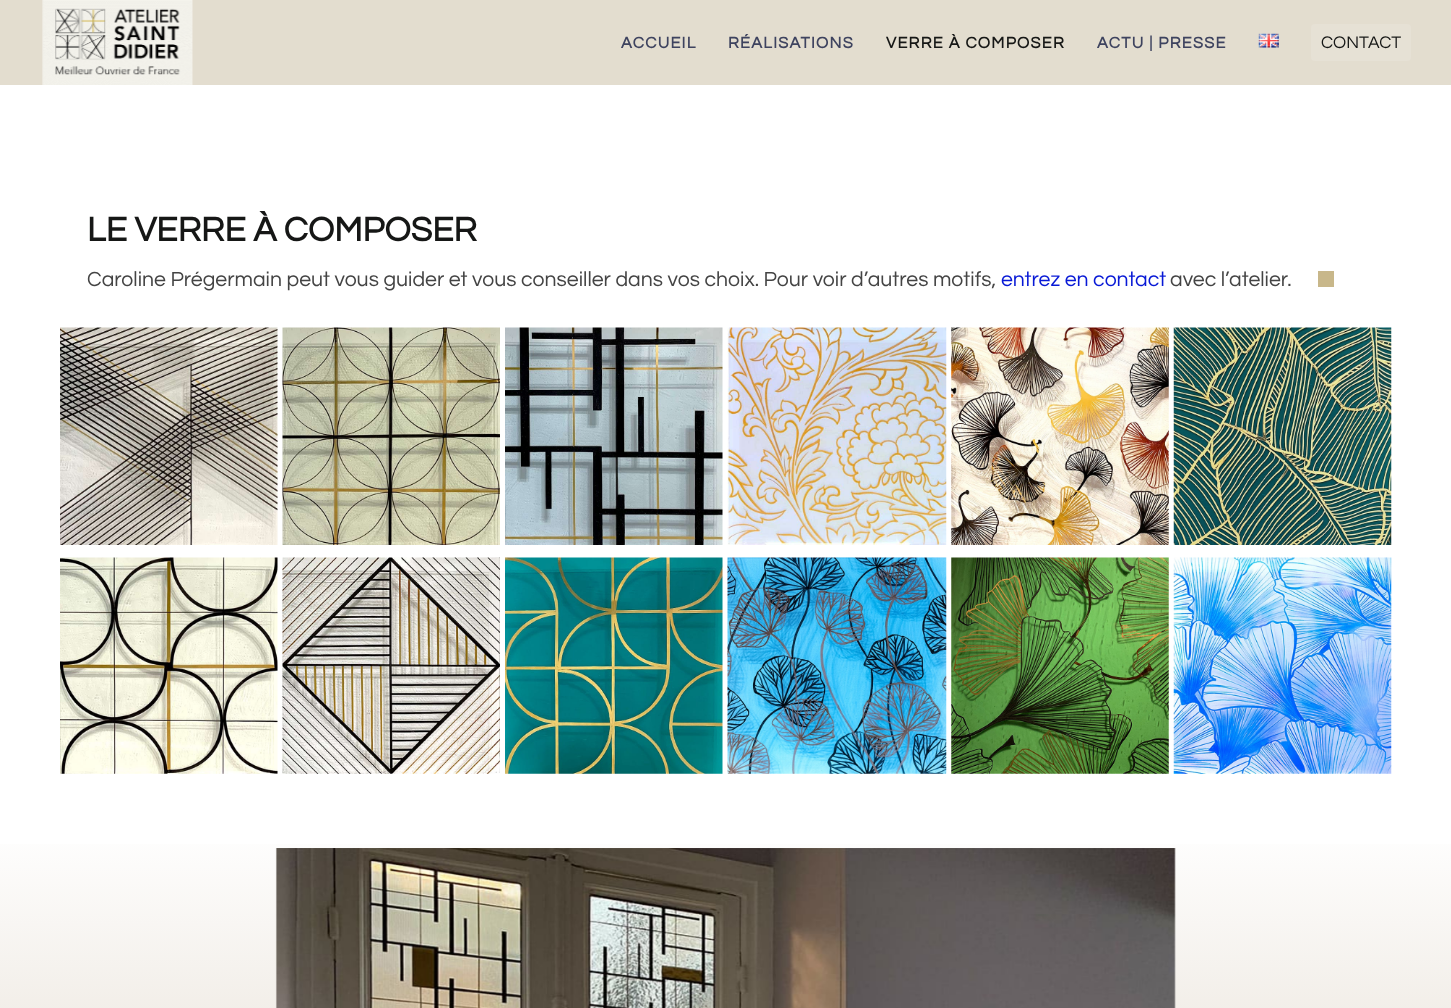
(async () => {
    const canvas = document.querySelector("canvas");
    canvas.width = 1451;
    canvas.height = 1008;
    const context = canvas.getContext("2d");
    context.miterLimit = 4;
    context.fontKerning = "normal";
    function write(s, x, y, font, color) {
        context.font = font;
        context.fillStyle = color;
        context.fillText(s, x, y);
    }
    function block(x, y, w, h, color) {
        context.fillStyle = color;
        context.fillRect(x, y, w, h);
    }
    function card(x, y, w, h, r, color) {
        context.fillStyle = color;
        context.beginPath();
        context.roundRect(x, y, w, h, r);
        context.fill();
    }
    async function photo(src, x, y, w, h) {
        const img = new Image();
        img.src = src;
        await img.decode();
        context.drawImage(img, x, y, w, h);
    }
    let gradient;

    block(0, 0, 1451, 1008, "rgb(255, 255, 255)");
    block(0, 0, 1451, 85, "rgb(227, 221, 207)");
    await photo("media/1.png", 42, 0, 151, 85);
    context.letterSpacing = "1.25px";
    write("ACCUEIL", 621, 48, "bold 16.25px Questrial", "rgb(62, 67, 95)");
    write("RÉALISATIONS", 728, 48, "bold 16.25px Questrial", "rgb(62, 67, 95)");
    write("VERRE À COMPOSER", 886, 48, "bold 16.25px Questrial", "rgb(22, 23, 22)");
    write("ACTU | PRESSE", 1097, 48, "bold 16.25px Questrial", "rgb(62, 67, 95)");
    await photo("media/2.png", 1258, 33, 21, 15);
    card(1311, 24, 100, 37, 4, "rgb(230, 225, 213)");
    context.letterSpacing = "0px";
    write("CONTACT", 1321, 48, "17.5px Questrial", "rgb(22, 23, 22)");
    write("LE VERRE À COMPOSER", 87, 241, "bold 35px Questrial", "rgb(22, 23, 22)");
    write("Caroline Prégermain peut vous guider et vous conseiller dans vos choix. Pour voir d’autres motifs,", 87, 286, "21.25px Questrial", "rgb(68, 68, 68)");
    write("entrez en contact", 1001, 286, "21.25px Questrial", "rgb(8, 25, 214)");
    write("avec l’atelier.", 1170, 286, "21.25px Questrial", "rgb(68, 68, 68)");
    block(1318, 271, 16, 16, "rgb(200, 183, 138)");
    await photo("media/3.png", 60, 327, 218, 218);
    await photo("media/4.png", 282, 327, 218, 218);
    await photo("media/5.png", 505, 327, 218, 218);
    await photo("media/6.png", 727, 327, 220, 218);
    await photo("media/7.png", 951, 327, 218, 218);
    await photo("media/8.png", 1173, 327, 219, 218);
    await photo("media/9.png", 60, 557, 218, 217);
    await photo("media/10.png", 282, 557, 218, 217);
    await photo("media/11.png", 505, 557, 218, 217);
    await photo("media/12.png", 727, 557, 220, 217);
    await photo("media/13.png", 951, 557, 218, 217);
    await photo("media/14.png", 1173, 557, 219, 217);
    gradient = context.createLinearGradient(726, 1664, 726, 823);
    gradient.addColorStop(0.6, "rgb(232, 225, 215)");
    gradient.addColorStop(1, "rgb(255, 255, 255)");
    context.fillStyle = gradient;
    context.fillRect(0, 844, 1451, 164);
    await photo("media/15.png", 275, 848, 901, 160);
})();
